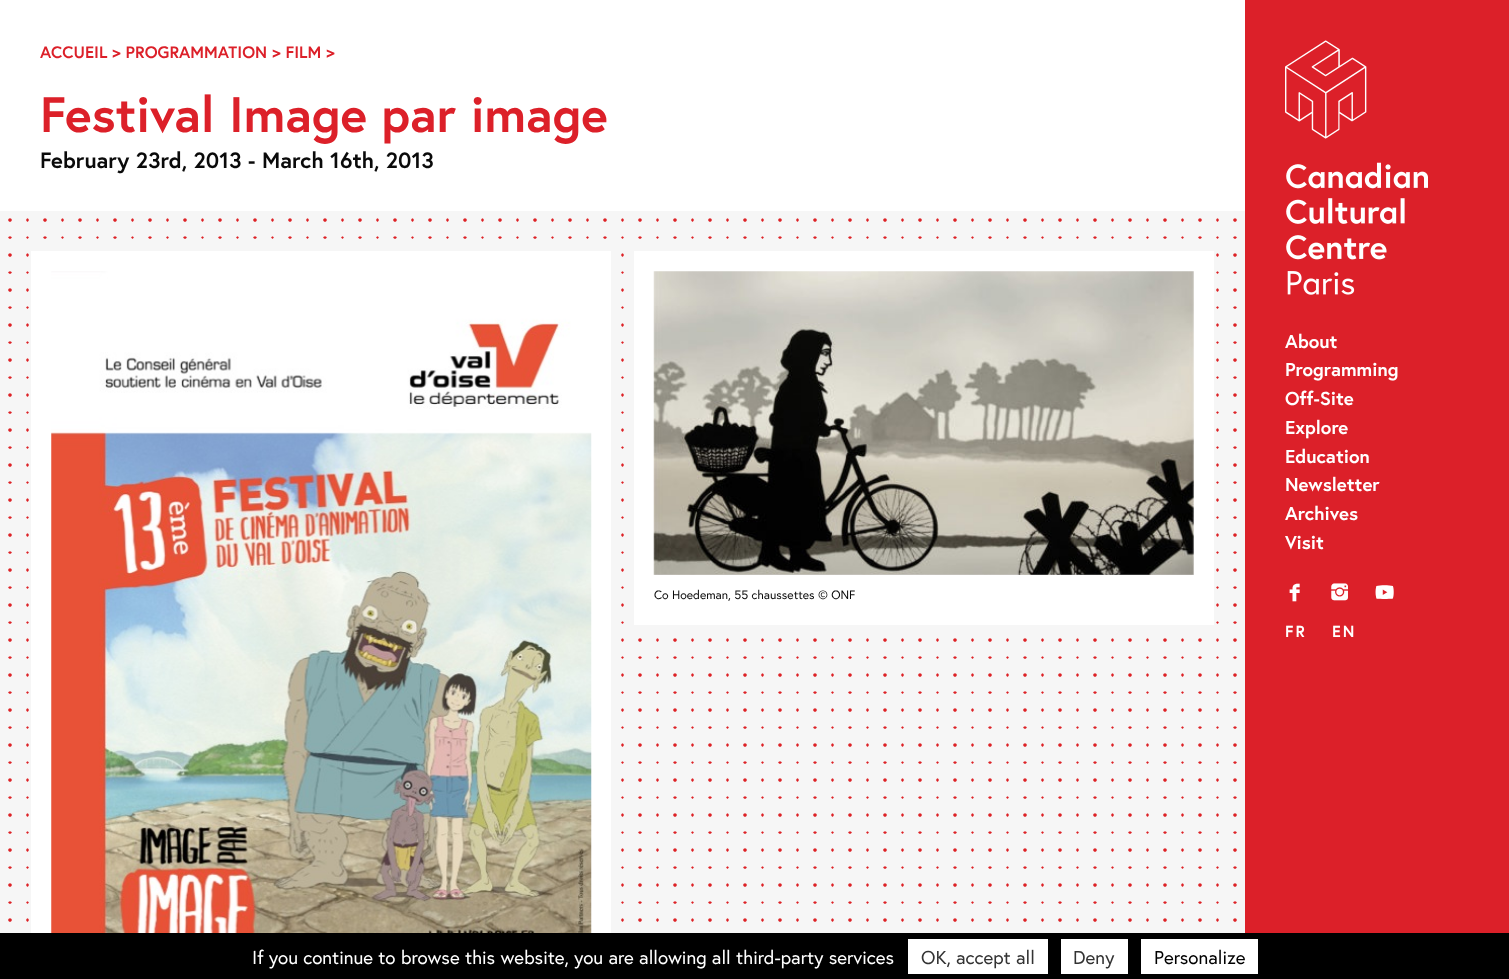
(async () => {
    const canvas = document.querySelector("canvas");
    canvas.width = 1509;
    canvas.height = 979;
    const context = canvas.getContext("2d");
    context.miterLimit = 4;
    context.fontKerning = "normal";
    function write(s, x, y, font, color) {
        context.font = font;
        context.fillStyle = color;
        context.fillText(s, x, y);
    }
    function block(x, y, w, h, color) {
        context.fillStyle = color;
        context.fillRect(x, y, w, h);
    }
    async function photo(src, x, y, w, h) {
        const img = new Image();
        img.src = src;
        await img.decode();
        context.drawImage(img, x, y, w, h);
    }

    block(0, 0, 1509, 979, "rgb(255, 255, 255)");
    write("ACCUEIL > PROGRAMMATION > FILM >", 40, 58, "bold 16.6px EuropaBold", "rgb(220, 32, 41)");
    write("Festival Image par image", 40, 132, "bold 49.75px EuropaBold", "rgb(220, 32, 41)");
    write("February 23rd, 2013 - March 16th, 2013", 40, 168, "bold 22.1px EuropaBold", "rgb(10, 10, 10)");
    block(0, 211, 1245, 722, "rgb(246, 246, 246)");
    await photo("media/1.png", 8, 218, 1229, 704);
    block(31, 251, 580, 682, "rgb(255, 255, 255)");
    await photo("media/2.png", 51, 271, 541, 662);
    block(634, 251, 580, 374, "rgb(255, 255, 255)");
    await photo("media/3.png", 653, 271, 541, 304);
    write("Co Hoedeman, 55 chaussettes © ONF", 654, 599, "12.1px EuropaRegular", "rgb(10, 10, 10)");
    block(1245, 0, 264, 933, "rgb(220, 32, 41)");
    await photo("media/4.png", 1285, 40, 143, 255);
    write("About", 1285, 348, "bold 18.75px EuropaBold", "rgb(255, 255, 255)");
    write("Programming", 1285, 376, "bold 18.75px EuropaBold", "rgb(255, 255, 255)");
    write("Off-Site", 1285, 405, "bold 18.75px EuropaBold", "rgb(255, 255, 255)");
    write("Explore", 1285, 434, "bold 18.75px EuropaBold", "rgb(255, 255, 255)");
    write("Education", 1285, 463, "bold 18.75px EuropaBold", "rgb(255, 255, 255)");
    write("Newsletter", 1285, 491, "bold 18.75px EuropaBold", "rgb(255, 255, 255)");
    write("Archives", 1285, 520, "bold 18.75px EuropaBold", "rgb(255, 255, 255)");
    write("Visit", 1285, 549, "bold 18.75px EuropaBold", "rgb(255, 255, 255)");
    write("f", 1285, 601, "bold 18.75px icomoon", "rgb(255, 255, 255)");
    write("i", 1330, 601, "bold 18.75px icomoon", "rgb(255, 255, 255)");
    write("y", 1375, 601, "bold 18.75px icomoon", "rgb(255, 255, 255)");
    context.letterSpacing = "2px";
    write("FR", 1285, 637, "bold 16px EuropaBold", "rgb(255, 255, 255)");
    write("EN", 1332, 637, "bold 16px EuropaBold", "rgb(255, 255, 255)");
    block(0, 933, 1509, 46, "rgb(0, 0, 0)");
    context.letterSpacing = "0px";
    write("If you continue to browse this website, you are allowing all third-party services", 252, 964, "18.75px EuropaRegular", "rgb(255, 255, 255)");
    block(908, 939, 140, 35, "rgb(255, 255, 255)");
    write("OK, accept all", 921, 964, "18.75px EuropaRegular", "rgb(51, 51, 51)");
    block(1061, 939, 67, 35, "rgb(255, 255, 255)");
    write("Deny", 1073, 964, "18.75px EuropaRegular", "rgb(51, 51, 51)");
    block(1141, 939, 117, 35, "rgb(255, 255, 255)");
    write("Personalize", 1154, 964, "18.75px EuropaRegular", "rgb(0, 0, 0)");
})();
